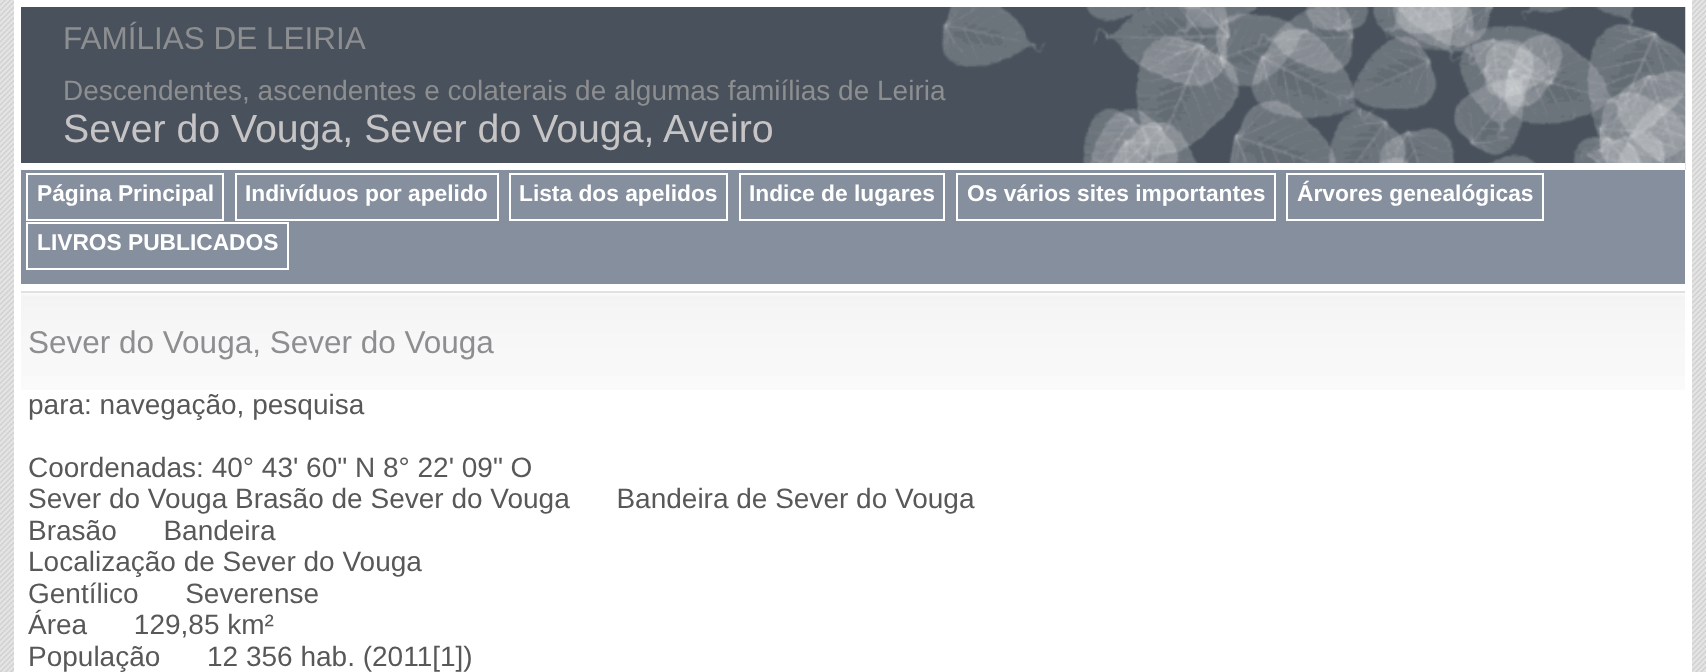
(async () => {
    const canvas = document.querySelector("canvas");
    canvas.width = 1706;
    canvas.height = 672;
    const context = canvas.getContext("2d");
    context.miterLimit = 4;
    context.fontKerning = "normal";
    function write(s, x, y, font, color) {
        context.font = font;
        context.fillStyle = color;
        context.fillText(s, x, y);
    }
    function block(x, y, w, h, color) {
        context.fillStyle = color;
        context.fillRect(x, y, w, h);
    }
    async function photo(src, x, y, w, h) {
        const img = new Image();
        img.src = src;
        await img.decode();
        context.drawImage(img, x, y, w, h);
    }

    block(0, 0, 1706, 672, "rgb(255, 255, 255)");
    await photo("media/1.png", 0, 0, 1706, 672);
    block(14, 0, 1678, 672, "rgb(255, 255, 255)");
    block(21, 7, 920, 156, "rgb(73, 81, 92)");
    await photo("media/2.png", 941, 7, 745, 163);
    block(941, 163, 744, 7, "rgb(255, 255, 255)");
    write("FAMÍLIAS DE LEIRIA", 63, 49, "31.5px Liberation Sans", "rgb(141, 142, 144)");
    write("Descendentes, ascendentes e colaterais de algumas famiílias de Leiria", 63, 100, "28px Liberation Sans", "rgb(141, 142, 144)");
    write("Sever do Vouga, Sever do Vouga, Aveiro", 63, 142, "39.25px Liberation Sans", "rgb(198, 196, 197)");
    block(21, 170, 1664, 114, "rgb(133, 143, 158)");
    context.strokeStyle = "rgb(255, 255, 255)";
    context.lineWidth = 2;
    context.strokeRect(27, 174, 196, 46);
    write("Página Principal", 37, 201, "bold 22.75px Liberation Sans", "rgb(255, 255, 255)");
    context.strokeRect(236, 174, 262, 46);
    write("Indivíduos por apelido", 245, 201, "bold 22.75px Liberation Sans", "rgb(255, 255, 255)");
    context.strokeRect(510, 174, 217, 46);
    write("Lista dos apelidos", 519, 201, "bold 22.75px Liberation Sans", "rgb(255, 255, 255)");
    context.strokeRect(740, 174, 204, 46);
    write("Indice de lugares", 749, 201, "bold 22.75px Liberation Sans", "rgb(255, 255, 255)");
    context.strokeRect(957, 174, 318, 46);
    write("Os vários sites importantes", 967, 201, "bold 22.75px Liberation Sans", "rgb(255, 255, 255)");
    context.strokeRect(1287, 174, 256, 46);
    write("Árvores genealógicas", 1297, 201, "bold 22.75px Liberation Sans", "rgb(255, 255, 255)");
    context.strokeRect(27, 223, 261, 46);
    write("LIVROS PUBLICADOS", 37, 250, "bold 22.75px Liberation Sans", "rgb(255, 255, 255)");
    await photo("media/3.png", 21, 293, 1664, 97);
    block(21, 291, 1664, 2, "rgb(225, 225, 225)");
    write("Sever do Vouga, Sever do Vouga", 28, 353, "31.5px Liberation Sans", "rgb(141, 142, 144)");
    write("para: navegação, pesquisa", 28, 414, "28px Liberation Sans", "rgb(88, 88, 88)");
    write("Coordenadas: 40° 43' 60\" N 8° 22' 09\" O", 28, 477, "28px Liberation Sans", "rgb(88, 88, 88)");
    write("Sever do Vouga Brasão de Sever do Vouga      Bandeira de Sever do Vouga", 28, 508, "28px Liberation Sans", "rgb(88, 88, 88)");
    write("Brasão      Bandeira", 28, 540, "28px Liberation Sans", "rgb(88, 88, 88)");
    write("Localização de Sever do Vouga", 28, 571, "28px Liberation Sans", "rgb(88, 88, 88)");
    write("Gentílico      Severense", 28, 603, "28px Liberation Sans", "rgb(88, 88, 88)");
    write("Área      129,85 km²", 28, 634, "28px Liberation Sans", "rgb(88, 88, 88)");
    write("População      12 356 hab. (2011[1])", 28, 666, "28px Liberation Sans", "rgb(88, 88, 88)");
})();
